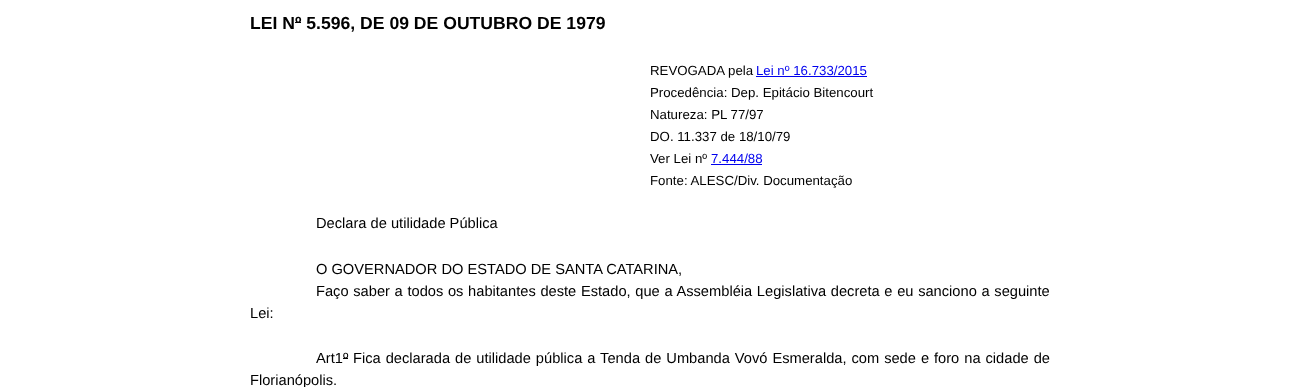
(async () => {
    const canvas = document.querySelector("canvas");
    canvas.width = 1300;
    canvas.height = 387;
    const context = canvas.getContext("2d");
    context.miterLimit = 4;
    context.fontKerning = "normal";
    function write(s, x, y, font, color) {
        context.font = font;
        context.fillStyle = color;
        context.fillText(s, x, y);
    }
    function block(x, y, w, h, color) {
        context.fillStyle = color;
        context.fillRect(x, y, w, h);
    }

    block(0, 0, 1300, 387, "rgb(255, 255, 255)");
    write("LEI Nº 5.596, DE 09 DE OUTUBRO DE 1979", 250, 29, "bold 17.6px Liberation Sans", "rgb(0, 0, 0)");
    block(295, 22, 6, 1, "rgb(0, 0, 0)");
    write("REVOGADA pela", 650, 75, "13.25px Liberation Sans", "rgb(0, 0, 0)");
    write("Lei nº 16.733/2015", 756, 75, "13.25px Liberation Sans", "rgb(0, 0, 238)");
    block(756, 76, 111, 1, "rgb(0, 0, 238)");
    write("Procedência: Dep. Epitácio Bitencourt", 650, 97, "13.25px Liberation Sans", "rgb(0, 0, 0)");
    write("Natureza: PL 77/97", 650, 119, "13.25px Liberation Sans", "rgb(0, 0, 0)");
    write("DO. 11.337 de 18/10/79", 650, 141, "13.25px Liberation Sans", "rgb(0, 0, 0)");
    write("Ver Lei nº", 650, 163, "13.25px Liberation Sans", "rgb(0, 0, 0)");
    write("7.444/88", 711, 163, "13.25px Liberation Sans", "rgb(0, 0, 238)");
    block(711, 164, 51, 1, "rgb(0, 0, 238)");
    write("Fonte: ALESC/Div. Documentação", 650, 185, "13.25px Liberation Sans", "rgb(0, 0, 0)");
    write("Declara de utilidade Pública", 316, 228, "14.67px Liberation Sans", "rgb(0, 0, 0)");
    write("O GOVERNADOR DO ESTADO DE SANTA CATARINA,", 316, 274, "14.67px Liberation Sans", "rgb(0, 0, 0)");
    context.wordSpacing = "0.6px";
    write("Faço saber a todos os habitantes deste Estado, que a Assembléia Legislativa decreta e eu sanciono a seguinte", 316, 296, "14.67px Liberation Sans", "rgb(0, 0, 0)");
    context.wordSpacing = "0px";
    write("Lei:", 250, 318, "14.67px Liberation Sans", "rgb(0, 0, 0)");
    write("Art1º", 316, 363, "14.67px Liberation Sans", "rgb(0, 0, 0)");
    context.wordSpacing = "0.9px";
    write("Fica declarada de utilidade pública a Tenda de Umbanda Vovó Esmeralda, com sede e foro na cidade de", 353, 363, "14.67px Liberation Sans", "rgb(0, 0, 0)");
    block(343, 358, 5, 1, "rgb(0, 0, 0)");
    context.wordSpacing = "0px";
    write("Florianópolis.", 250, 385, "14.67px Liberation Sans", "rgb(0, 0, 0)");
})();
